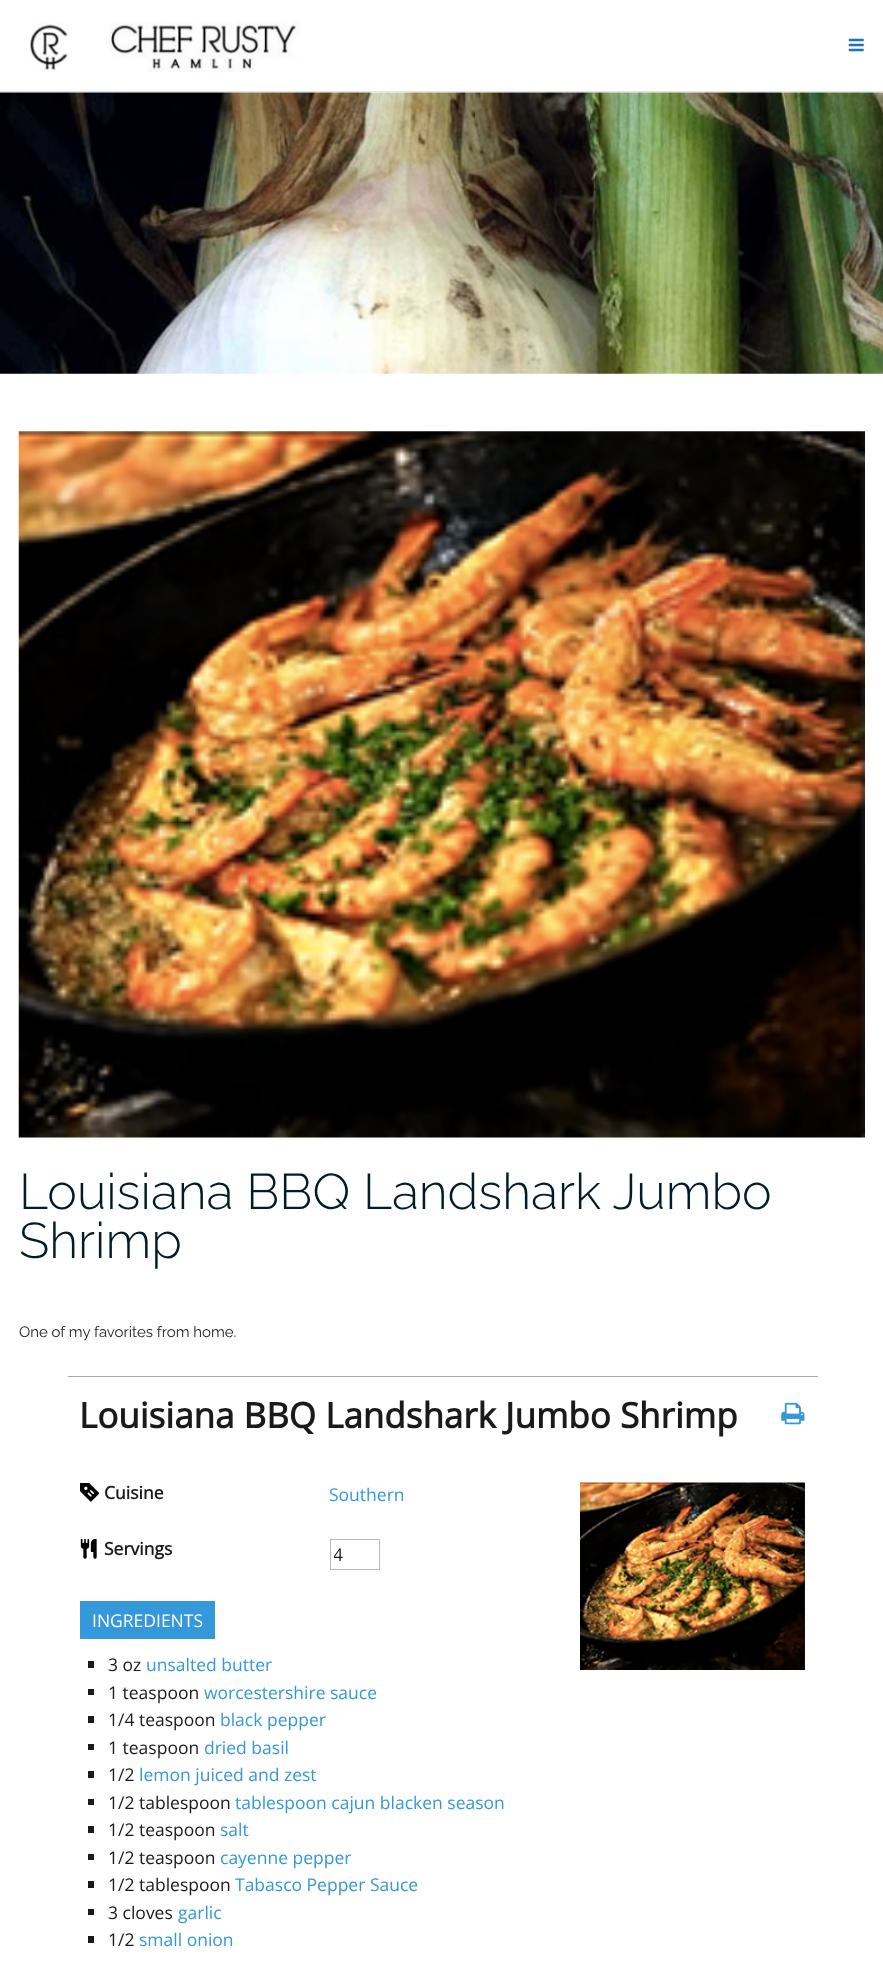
(async () => {
    const canvas = document.querySelector("canvas");
    canvas.width = 883;
    canvas.height = 1963;
    const context = canvas.getContext("2d");
    context.miterLimit = 4;
    context.fontKerning = "normal";
    function write(s, x, y, font, color) {
        context.font = font;
        context.fillStyle = color;
        context.fillText(s, x, y);
    }
    function block(x, y, w, h, color) {
        context.fillStyle = color;
        context.fillRect(x, y, w, h);
    }
    async function photo(src, x, y, w, h) {
        const img = new Image();
        img.src = src;
        await img.decode();
        context.drawImage(img, x, y, w, h);
    }

    block(0, 0, 883, 1963, "rgb(255, 255, 255)");
    block(0, 91, 883, 1, "rgb(230, 230, 230)");
    await photo("media/1.png", 30, 21, 270, 52);
    await photo("media/2.png", 848, 38, 16, 14);
    await photo("media/3.png", 0, 92, 883, 282);
    await photo("media/4.png", 18, 431, 847, 707);
    write("Louisiana BBQ Landshark Jumbo", 19, 1209, "300 50px Raleway", "rgb(0, 28, 40)");
    write("Shrimp", 19, 1258, "300 50px Raleway", "rgb(0, 28, 40)");
    write("One of my favorites from home.", 19, 1337, "15px Raleway", "rgb(34, 34, 34)");
    block(68, 1376, 750, 1, "rgb(170, 170, 170)");
    write("Louisiana BBQ Landshark Jumbo Shrimp", 79, 1428, "bold 35px Open Sans", "rgb(26, 26, 26)");
    await photo("media/5.png", 781, 1402, 24, 23);
    await photo("media/6.png", 80, 1483, 20, 19);
    write("Cuisine", 104, 1499, "bold 17.5px Open Sans", "rgb(26, 26, 26)");
    write("Southern", 329, 1501, "17.5px Open Sans", "rgb(52, 152, 219)");
    await photo("media/7.png", 80, 1539, 17, 20);
    write("Servings", 104, 1555, "bold 17.5px Open Sans", "rgb(26, 26, 26)");
    context.strokeStyle = "rgb(187, 187, 187)";
    context.strokeRect(330.5, 1539.5, 49, 30);
    context.save();
    context.beginPath();
    context.rect(334, 1543, 24, 23);
    context.clip();
    write("4", 333, 1561, "17.5px Open Sans", "rgb(26, 26, 26)");
    context.restore();
    block(80, 1601, 135, 38, "rgb(52, 152, 219)");
    write("INGREDIENTS", 92, 1627, "17.5px Open Sans", "rgb(255, 255, 255)");
    block(88, 1661, 6, 7, "rgb(26, 26, 26)");
    write("3 oz", 108, 1671, "17.5px Open Sans", "rgb(26, 26, 26)");
    write("unsalted butter", 146, 1671, "17.5px Open Sans", "rgb(52, 152, 219)");
    block(88, 1689, 6, 6, "rgb(26, 26, 26)");
    write("1 teaspoon", 108, 1699, "17.5px Open Sans", "rgb(26, 26, 26)");
    write("worcestershire sauce", 204, 1699, "17.5px Open Sans", "rgb(52, 152, 219)");
    block(88, 1716, 6, 7, "rgb(26, 26, 26)");
    write("1/4 teaspoon", 108, 1726, "17.5px Open Sans", "rgb(26, 26, 26)");
    write("black pepper", 220, 1726, "17.5px Open Sans", "rgb(52, 152, 219)");
    block(88, 1744, 6, 6, "rgb(26, 26, 26)");
    write("1 teaspoon", 108, 1754, "17.5px Open Sans", "rgb(26, 26, 26)");
    write("dried basil", 204, 1754, "17.5px Open Sans", "rgb(52, 152, 219)");
    block(88, 1771, 6, 7, "rgb(26, 26, 26)");
    write("1/2", 108, 1781, "17.5px Open Sans", "rgb(26, 26, 26)");
    write("lemon juiced and zest", 139, 1781, "17.5px Open Sans", "rgb(52, 152, 219)");
    block(88, 1799, 6, 6, "rgb(26, 26, 26)");
    write("1/2 tablespoon", 108, 1809, "17.5px Open Sans", "rgb(26, 26, 26)");
    write("tablespoon cajun blacken season", 235, 1809, "17.5px Open Sans", "rgb(52, 152, 219)");
    block(88, 1826, 6, 7, "rgb(26, 26, 26)");
    write("1/2 teaspoon", 108, 1836, "17.5px Open Sans", "rgb(26, 26, 26)");
    write("salt", 220, 1836, "17.5px Open Sans", "rgb(52, 152, 219)");
    block(88, 1854, 6, 6, "rgb(26, 26, 26)");
    write("1/2 teaspoon", 108, 1864, "17.5px Open Sans", "rgb(26, 26, 26)");
    write("cayenne pepper", 220, 1864, "17.5px Open Sans", "rgb(52, 152, 219)");
    block(88, 1881, 6, 7, "rgb(26, 26, 26)");
    write("1/2 tablespoon", 108, 1891, "17.5px Open Sans", "rgb(26, 26, 26)");
    write("Tabasco Pepper Sauce", 235, 1891, "17.5px Open Sans", "rgb(52, 152, 219)");
    block(88, 1909, 6, 6, "rgb(26, 26, 26)");
    write("3 cloves", 108, 1919, "17.5px Open Sans", "rgb(26, 26, 26)");
    write("garlic", 178, 1919, "17.5px Open Sans", "rgb(52, 152, 219)");
    block(88, 1936, 6, 7, "rgb(26, 26, 26)");
    write("1/2", 108, 1946, "17.5px Open Sans", "rgb(26, 26, 26)");
    write("small onion", 139, 1946, "17.5px Open Sans", "rgb(52, 152, 219)");
    await photo("media/8.png", 580, 1482, 225, 188);
})();
